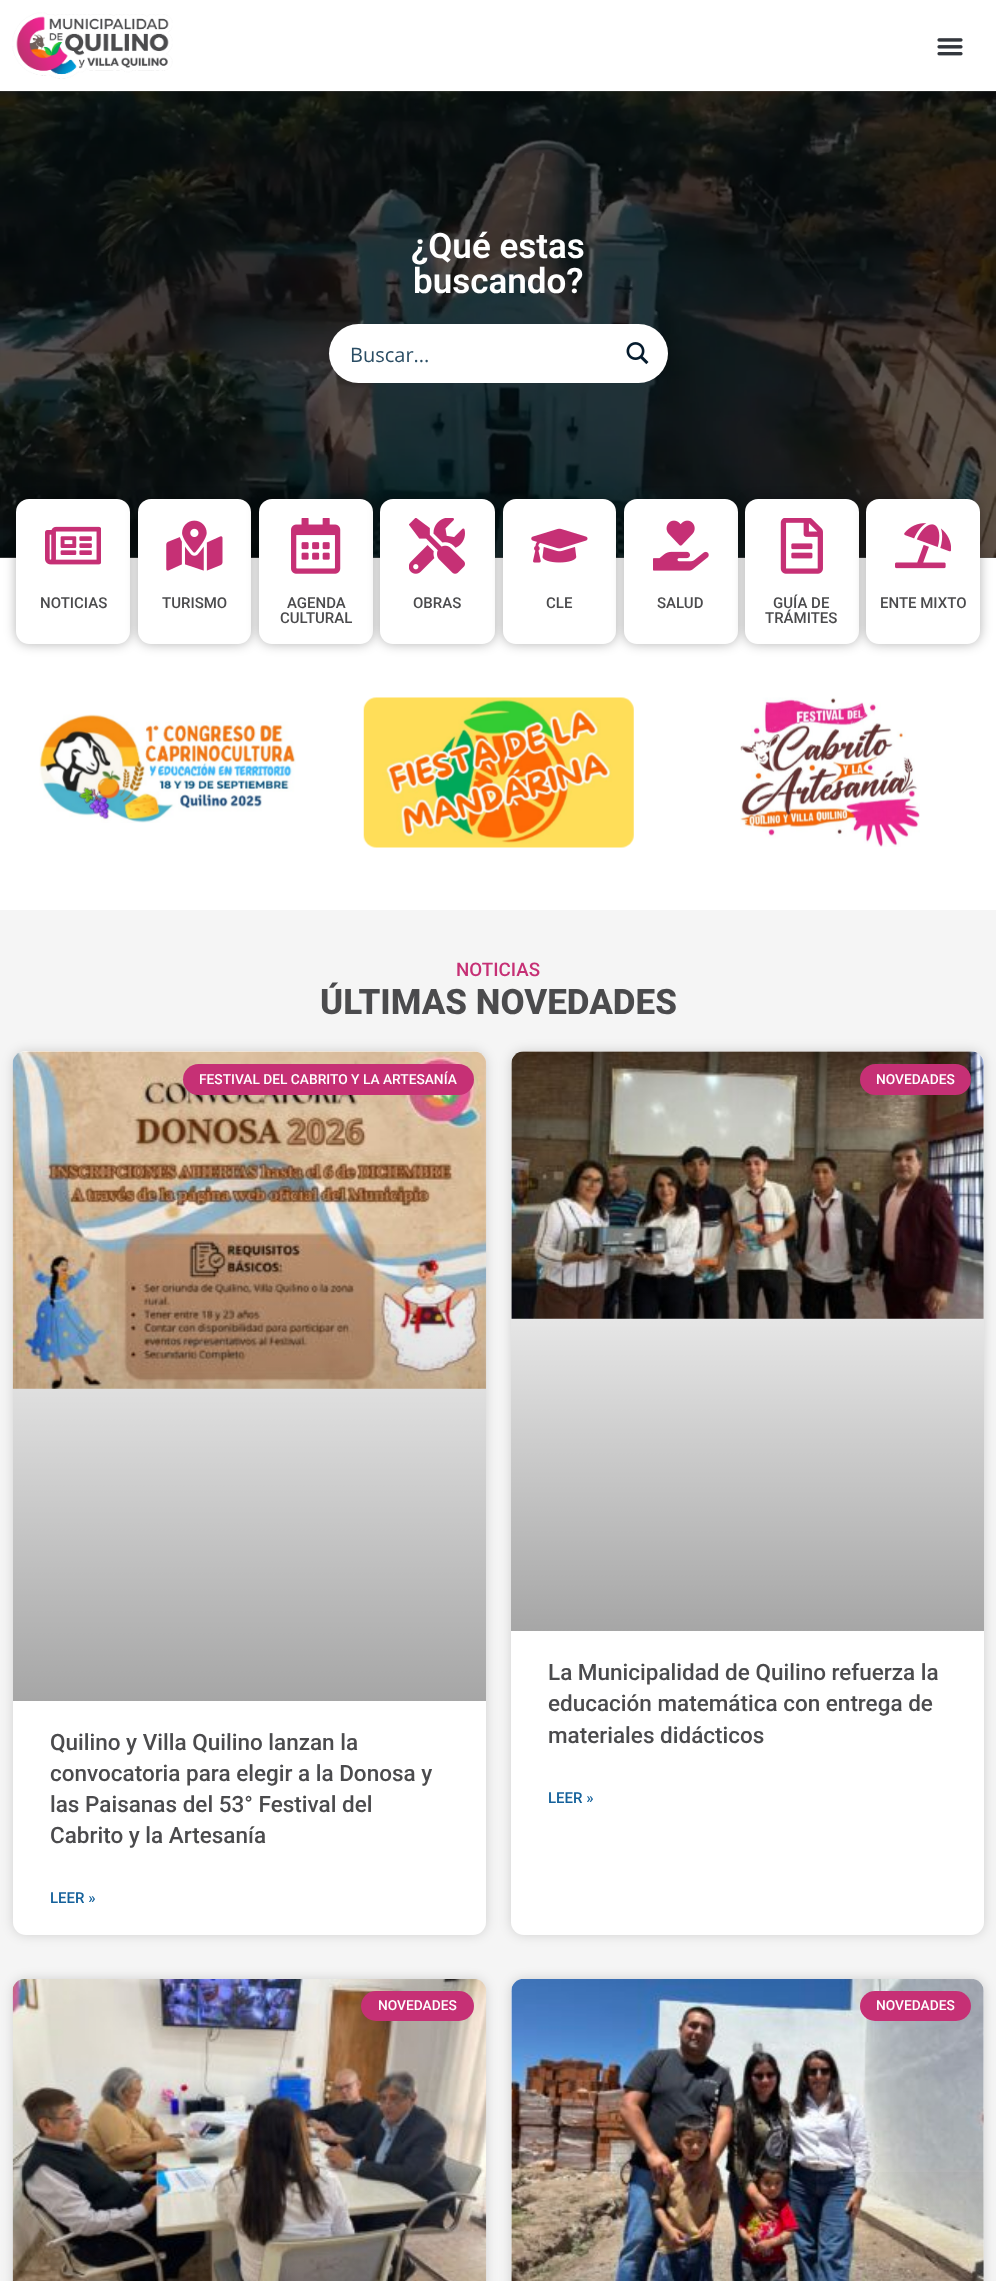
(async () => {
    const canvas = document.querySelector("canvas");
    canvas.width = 996;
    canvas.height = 2281;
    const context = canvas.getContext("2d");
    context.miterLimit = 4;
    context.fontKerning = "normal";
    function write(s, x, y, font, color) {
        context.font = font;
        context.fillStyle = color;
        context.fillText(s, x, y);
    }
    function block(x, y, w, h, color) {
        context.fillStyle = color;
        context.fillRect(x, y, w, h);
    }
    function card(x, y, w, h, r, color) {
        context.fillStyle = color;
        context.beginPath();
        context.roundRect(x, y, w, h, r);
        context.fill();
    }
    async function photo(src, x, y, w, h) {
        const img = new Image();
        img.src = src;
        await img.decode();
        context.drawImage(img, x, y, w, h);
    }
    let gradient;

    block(0, 0, 996, 2281, "rgb(255, 255, 255)");
    block(0, 91, 996, 467, "rgb(92, 92, 92)");
    await photo("media/1.png", 12, 12, 161, 67);
    await photo("media/2.png", 937, 38, 26, 18);
    await photo("media/3.png", 0, 91, 996, 467);
    write("¿Qué estas", 411, 258, "600 35px Roboto", "rgb(255, 255, 255)");
    write("buscando?", 413, 293, "600 35px Roboto", "rgb(255, 255, 255)");
    card(329, 324, 339, 59, 29.5, "rgb(255, 255, 255)");
    write("Buscar...", 350, 362, "20px Open Sans", "rgb(42, 77, 100)");
    await photo("media/4.png", 626, 342, 23, 23);
    context.fillStyle = "rgba(0, 0, 0, 0.3)";
    context.filter = "blur(6px)";
    context.beginPath();
    context.roundRect(16, 499, 114, 145, 13);
    context.fill();
    context.filter = "none";
    card(16, 499, 114, 145, 13, "rgb(255, 255, 255)");
    await photo("media/5.png", 45, 526, 56, 39);
    write("NOTICIAS", 40, 608, "500 15px Roboto", "rgb(75, 75, 77)");
    context.fillStyle = "rgba(0, 0, 0, 0.3)";
    context.filter = "blur(6px)";
    context.beginPath();
    context.roundRect(138, 499, 113, 145, 13);
    context.fill();
    context.filter = "none";
    card(138, 499, 113, 145, 13, "rgb(255, 255, 255)");
    await photo("media/6.png", 166, 520, 57, 51);
    write("TURISMO", 162, 608, "500 15px Roboto", "rgb(75, 75, 77)");
    context.fillStyle = "rgba(0, 0, 0, 0.3)";
    context.filter = "blur(6px)";
    context.beginPath();
    context.roundRect(259, 499, 114, 145, 13);
    context.fill();
    context.filter = "none";
    card(259, 499, 114, 145, 13, "rgb(255, 255, 255)");
    await photo("media/7.png", 291, 518, 50, 56);
    write("AGENDA", 287, 608, "500 15px Roboto", "rgb(75, 75, 77)");
    write("CULTURAL", 280, 623, "500 15px Roboto", "rgb(75, 75, 77)");
    context.fillStyle = "rgba(0, 0, 0, 0.3)";
    context.filter = "blur(6px)";
    context.beginPath();
    context.roundRect(380, 499, 115, 145, 13);
    context.fill();
    context.filter = "none";
    card(380, 499, 115, 145, 13, "rgb(255, 255, 255)");
    await photo("media/8.png", 409, 518, 56, 56);
    write("OBRAS", 413, 608, "500 15px Roboto", "rgb(75, 75, 77)");
    context.fillStyle = "rgba(0, 0, 0, 0.3)";
    context.filter = "blur(6px)";
    context.beginPath();
    context.roundRect(503, 499, 113, 145, 13);
    context.fill();
    context.filter = "none";
    card(503, 499, 113, 145, 13, "rgb(255, 255, 255)");
    await photo("media/9.png", 531, 528, 57, 35);
    write("CLE", 546, 608, "500 15px Roboto", "rgb(75, 75, 77)");
    context.fillStyle = "rgba(0, 0, 0, 0.3)";
    context.filter = "blur(6px)";
    context.beginPath();
    context.roundRect(624, 499, 114, 145, 13);
    context.fill();
    context.filter = "none";
    card(624, 499, 114, 145, 13, "rgb(255, 255, 255)");
    await photo("media/10.png", 653, 520, 56, 51);
    write("SALUD", 657, 608, "500 15px Roboto", "rgb(75, 75, 77)");
    context.fillStyle = "rgba(0, 0, 0, 0.3)";
    context.filter = "blur(6px)";
    context.beginPath();
    context.roundRect(745, 499, 114, 145, 13);
    context.fill();
    context.filter = "none";
    card(745, 499, 114, 145, 13, "rgb(255, 255, 255)");
    await photo("media/11.png", 780, 518, 43, 56);
    write("GUÍA DE", 773, 608, "500 15px Roboto", "rgb(75, 75, 77)");
    write("TRÁMITES", 765, 623, "500 15px Roboto", "rgb(75, 75, 77)");
    context.fillStyle = "rgba(0, 0, 0, 0.3)";
    context.filter = "blur(6px)";
    context.beginPath();
    context.roundRect(866, 499, 114, 145, 13);
    context.fill();
    context.filter = "none";
    card(866, 499, 114, 145, 13, "rgb(255, 255, 255)");
    await photo("media/12.png", 895, 523, 56, 46);
    write("ENTE MIXTO", 880, 608, "500 15px Roboto", "rgb(75, 75, 77)");
    await photo("media/13.png", 39, 714, 257, 109);
    await photo("media/14.png", 363, 697, 271, 151);
    await photo("media/15.png", 740, 697, 180, 150);
    block(0, 910, 996, 1371, "rgb(245, 245, 245)");
    write("NOTICIAS", 456, 976, "500 18.75px Roboto", "rgb(198, 48, 117)");
    write("ÚLTIMAS NOVEDADES", 320, 1014, "800 35px Roboto", "rgb(75, 75, 77)");
    context.fillStyle = "rgba(0, 0, 0, 0.15)";
    context.filter = "blur(6px)";
    context.beginPath();
    context.roundRect(13, 1051, 473, 884, 13);
    context.fill();
    context.filter = "none";
    card(13, 1051, 473, 884, 13, "rgb(255, 255, 255)");
    await photo("media/16.png", 12, 1051, 475, 338);
    gradient = context.createLinearGradient(249, 1701, 249, 1051);
    gradient.addColorStop(0, "rgba(0, 0, 0, 0.35)");
    gradient.addColorStop(0.75, "rgba(0, 0, 0, 0)");
    context.fillStyle = gradient;
    context.fillRect(13, 1244, 473, 457);
    card(183, 1064, 291, 31, 15.5, "rgb(198, 48, 117)");
    write("FESTIVAL DEL CABRITO Y LA ARTESANÍA", 199, 1084, "500 13.75px Roboto", "rgb(255, 255, 255)");
    write("Quilino y Villa Quilino lanzan la", 50, 1750, "500 22.5px Roboto", "rgb(75, 75, 77)");
    write("convocatoria para elegir a la Donosa y", 50, 1781, "500 22.5px Roboto", "rgb(75, 75, 77)");
    write("las Paisanas del 53° Festival del", 50, 1812, "500 22.5px Roboto", "rgb(75, 75, 77)");
    write("Cabrito y la Artesanía", 50, 1843, "500 22.5px Roboto", "rgb(75, 75, 77)");
    write("LEER »", 50, 1903, "500 15px Roboto", "rgb(20, 97, 155)");
    context.fillStyle = "rgba(0, 0, 0, 0.15)";
    context.filter = "blur(6px)";
    context.beginPath();
    context.roundRect(511, 1051, 473, 884, 13);
    context.fill();
    context.filter = "none";
    card(511, 1051, 473, 884, 13, "rgb(255, 255, 255)");
    await photo("media/17.png", 511, 1051, 473, 268);
    gradient = context.createLinearGradient(748, 1631, 748, 1051);
    gradient.addColorStop(0, "rgba(0, 0, 0, 0.35)");
    gradient.addColorStop(0.75, "rgba(0, 0, 0, 0)");
    context.fillStyle = gradient;
    context.fillRect(511, 1223, 473, 408);
    card(860, 1064, 111, 31, 15.5, "rgb(198, 48, 117)");
    write("NOVEDADES", 876, 1084, "500 13.75px Roboto", "rgb(255, 255, 255)");
    write("La Municipalidad de Quilino refuerza la", 548, 1680, "500 22.5px Roboto", "rgb(75, 75, 77)");
    write("educación matemática con entrega de", 548, 1711, "500 22.5px Roboto", "rgb(75, 75, 77)");
    write("materiales didácticos", 548, 1743, "500 22.5px Roboto", "rgb(75, 75, 77)");
    write("LEER »", 548, 1803, "500 15px Roboto", "rgb(20, 97, 155)");
    context.fillStyle = "rgba(0, 0, 0, 0.15)";
    context.filter = "blur(6px)";
    context.beginPath();
    context.roundRect(13, 1979, 473, 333, 13);
    context.fill();
    context.filter = "none";
    await photo("media/18.png", 12, 1979, 475, 302);
    gradient = context.createLinearGradient(249, 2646, 249, 1979);
    gradient.addColorStop(0, "rgba(0, 0, 0, 0.35)");
    gradient.addColorStop(0.75, "rgba(0, 0, 0, 0)");
    context.fillStyle = gradient;
    context.fillRect(13, 2177, 473, 104);
    card(361, 1991, 113, 30, 15, "rgb(198, 48, 117)");
    write("NOVEDADES", 378, 2010, "500 13.75px Roboto", "rgb(255, 255, 255)");
    context.fillStyle = "rgba(0, 0, 0, 0.15)";
    context.filter = "blur(6px)";
    context.beginPath();
    context.roundRect(511, 1979, 473, 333, 13);
    context.fill();
    context.filter = "none";
    card(511, 1979, 473, 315, 13, "rgb(255, 255, 255)");
    await photo("media/19.png", 511, 1979, 473, 302);
    gradient = context.createLinearGradient(748, 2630, 748, 1979);
    gradient.addColorStop(0, "rgba(0, 0, 0, 0.35)");
    gradient.addColorStop(0.75, "rgba(0, 0, 0, 0)");
    context.fillStyle = gradient;
    context.fillRect(511, 2172, 473, 109);
    card(860, 1991, 111, 30, 15, "rgb(198, 48, 117)");
    write("NOVEDADES", 876, 2010, "500 13.75px Roboto", "rgb(255, 255, 255)");
})();
